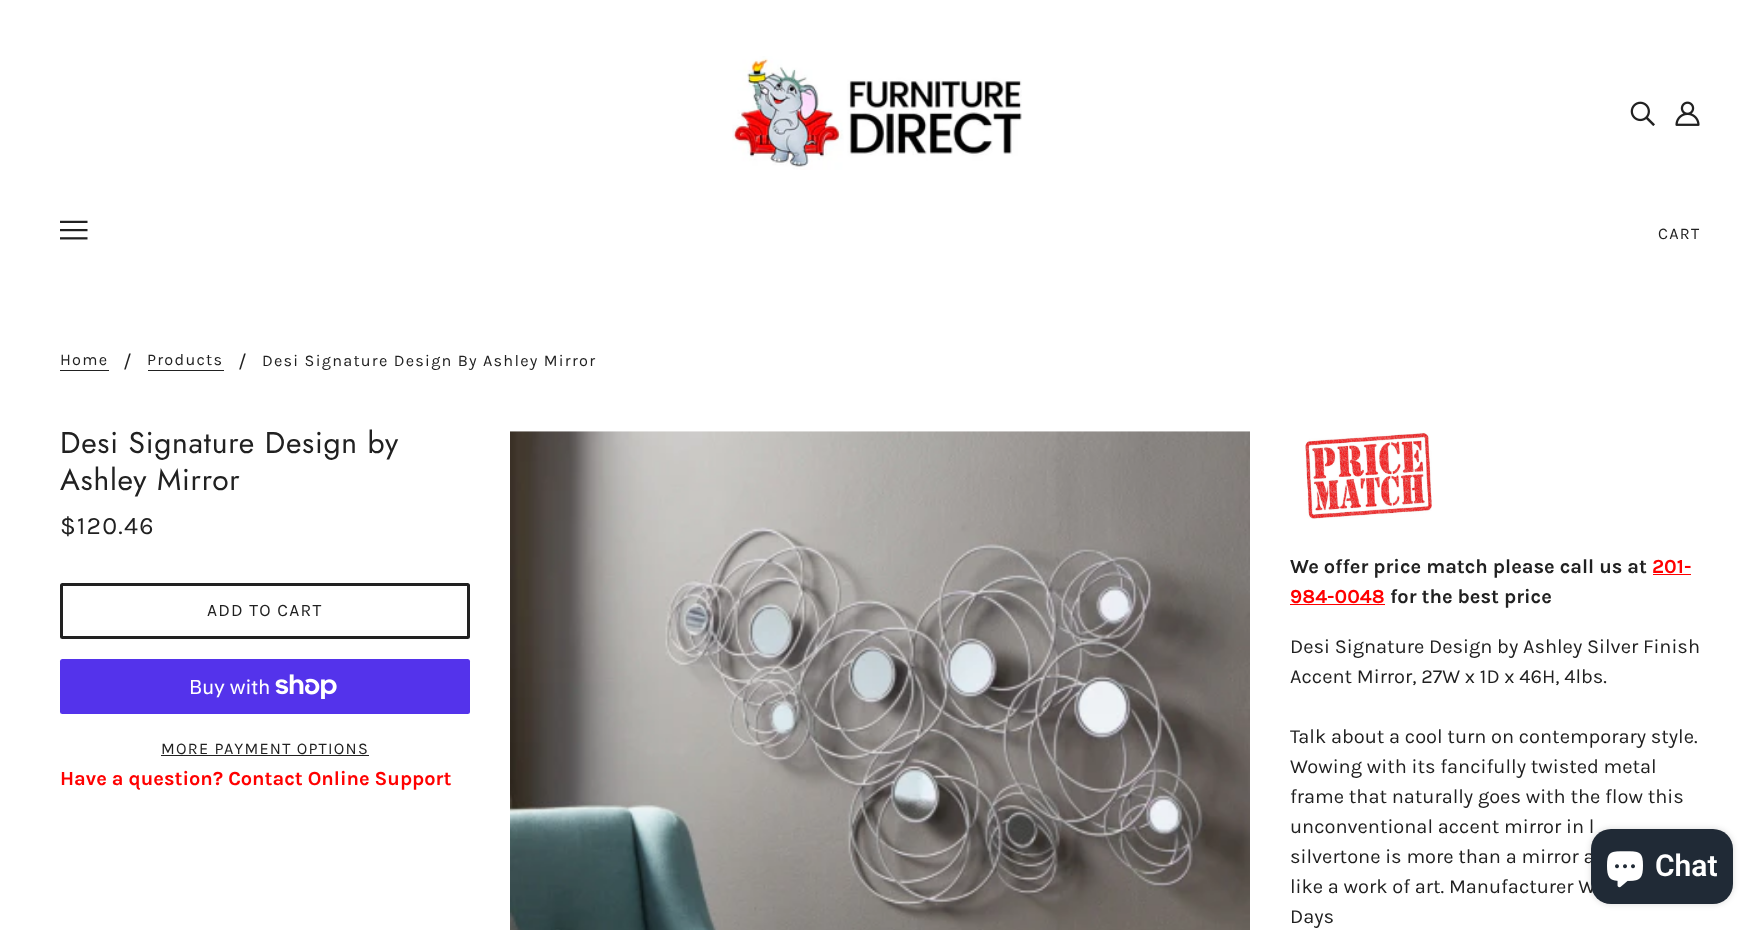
(async () => {
    const canvas = document.querySelector("canvas");
    canvas.width = 1759;
    canvas.height = 930;
    const context = canvas.getContext("2d");
    context.miterLimit = 4;
    context.fontKerning = "normal";
    function write(s, x, y, font, color) {
        context.font = font;
        context.fillStyle = color;
        context.fillText(s, x, y);
    }
    function block(x, y, w, h, color) {
        context.fillStyle = color;
        context.fillRect(x, y, w, h);
    }
    function card(x, y, w, h, r, color) {
        context.fillStyle = color;
        context.beginPath();
        context.roundRect(x, y, w, h, r);
        context.fill();
    }
    async function photo(src, x, y, w, h) {
        const img = new Image();
        img.src = src;
        await img.decode();
        context.drawImage(img, x, y, w, h);
    }

    block(0, 0, 1759, 930, "rgb(255, 255, 255)");
    await photo("media/1.png", 732, 56, 290, 114);
    await photo("media/2.png", 1630, 101, 25, 25);
    await photo("media/3.png", 1675, 101, 25, 25);
    await photo("media/4.png", 60, 220, 28, 20);
    context.letterSpacing = "1.25px";
    write("CART", 1658, 239, "16.25px Karla", "rgb(33, 33, 33)");
    write("Home", 60, 365, "16.25px Karla", "rgb(33, 33, 33)");
    block(60, 370, 49, 1, "rgb(33, 33, 33)");
    context.letterSpacing = "0px";
    write("/", 123, 368, "20px Karla", "rgb(33, 33, 33)");
    context.letterSpacing = "1.25px";
    write("Products", 147, 365, "16.25px Karla", "rgb(33, 33, 33)");
    block(148, 370, 76, 1, "rgb(33, 33, 33)");
    context.letterSpacing = "0px";
    write("/", 238, 368, "20px Karla", "rgb(33, 33, 33)");
    context.letterSpacing = "1.25px";
    write("Desi Signature Design By Ashley Mirror", 262, 366, "16.25px Karla", "rgb(33, 33, 33)");
    context.letterSpacing = "0.75px";
    write("Desi Signature Design by", 60, 453, "30px Jost", "rgb(33, 33, 33)");
    write("Ashley Mirror", 60, 490, "30px Jost", "rgb(33, 33, 33)");
    await photo("media/5.png", 510, 431, 740, 499);
    context.letterSpacing = "1.25px";
    write("$120.46", 60, 534, "25px Karla", "rgb(33, 33, 33)");
    context.beginPath();
    context.roundRect(61.5, 584.5, 407, 53, 1);
    context.strokeStyle = "rgb(33, 33, 33)";
    context.lineWidth = 3;
    context.stroke();
    write("ADD TO CART", 207, 616, "17.5px Karla", "rgb(33, 33, 33)");
    card(60, 659, 410, 55, 2.5, "rgb(84, 51, 235)");
    context.letterSpacing = "0px";
    write("Buy with", 189, 694, "20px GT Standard", "rgb(255, 255, 255)");
    await photo("media/6.png", 275, 674, 62, 25);
    context.letterSpacing = "1.25px";
    write("MORE PAYMENT OPTIONS", 161, 754, "16.25px Karla", "rgb(33, 33, 33)");
    block(161, 755, 208, 1, "rgb(33, 33, 33)");
    context.letterSpacing = "0px";
    write("Have a question? Contact Online Support", 60, 785, "bold 20px Karla", "rgb(255, 0, 0)");
    await photo("media/7.png", 1305, 432, 127, 87);
    write("We offer price match please call us at", 1290, 573, "bold 20px Karla", "rgb(33, 33, 33)");
    write("201-", 1652, 573, "bold 20px Karla", "rgb(255, 0, 0)");
    block(1653, 574, 38, 1, "rgb(255, 0, 0)");
    write("984-0048", 1290, 603, "bold 20px Karla", "rgb(255, 0, 0)");
    block(1290, 604, 95, 1, "rgb(255, 0, 0)");
    write("for the best price", 1390, 603, "bold 20px Karla", "rgb(33, 33, 33)");
    write("Desi Signature Design by Ashley Silver Finish", 1290, 653, "20px Karla", "rgb(33, 33, 33)");
    write("Accent Mirror, 27W x 1D x 46H, 4lbs.", 1290, 683, "20px Karla", "rgb(33, 33, 33)");
    write("Talk about a cool turn on contemporary style.", 1290, 743, "20px Karla", "rgb(33, 33, 33)");
    write("Wowing with its fancifully twisted metal", 1290, 773, "20px Karla", "rgb(33, 33, 33)");
    write("frame that naturally goes with the flow this", 1290, 803, "20px Karla", "rgb(33, 33, 33)");
    write("unconventional accent mirror in l", 1290, 833, "20px Karla", "rgb(33, 33, 33)");
    write("silvertone is more than a mirror a", 1290, 863, "20px Karla", "rgb(33, 33, 33)");
    write("like a work of art. Manufacturer W", 1290, 893, "20px Karla", "rgb(33, 33, 33)");
    write("Days", 1290, 923, "20px Karla", "rgb(33, 33, 33)");
    context.fillStyle = "rgba(0, 0, 0, 0.15)";
    context.filter = "blur(3px)";
    context.beginPath();
    context.roundRect(1591, 829, 142, 75, 20);
    context.fill();
    context.filter = "none";
    card(1591, 829, 142, 75, 20, "rgb(32, 42, 54)");
    await photo("media/8.png", 1607, 851, 36, 37);
    write("Chat", 1655, 876, "600 30px Roboto", "rgb(255, 255, 255)");
})();
